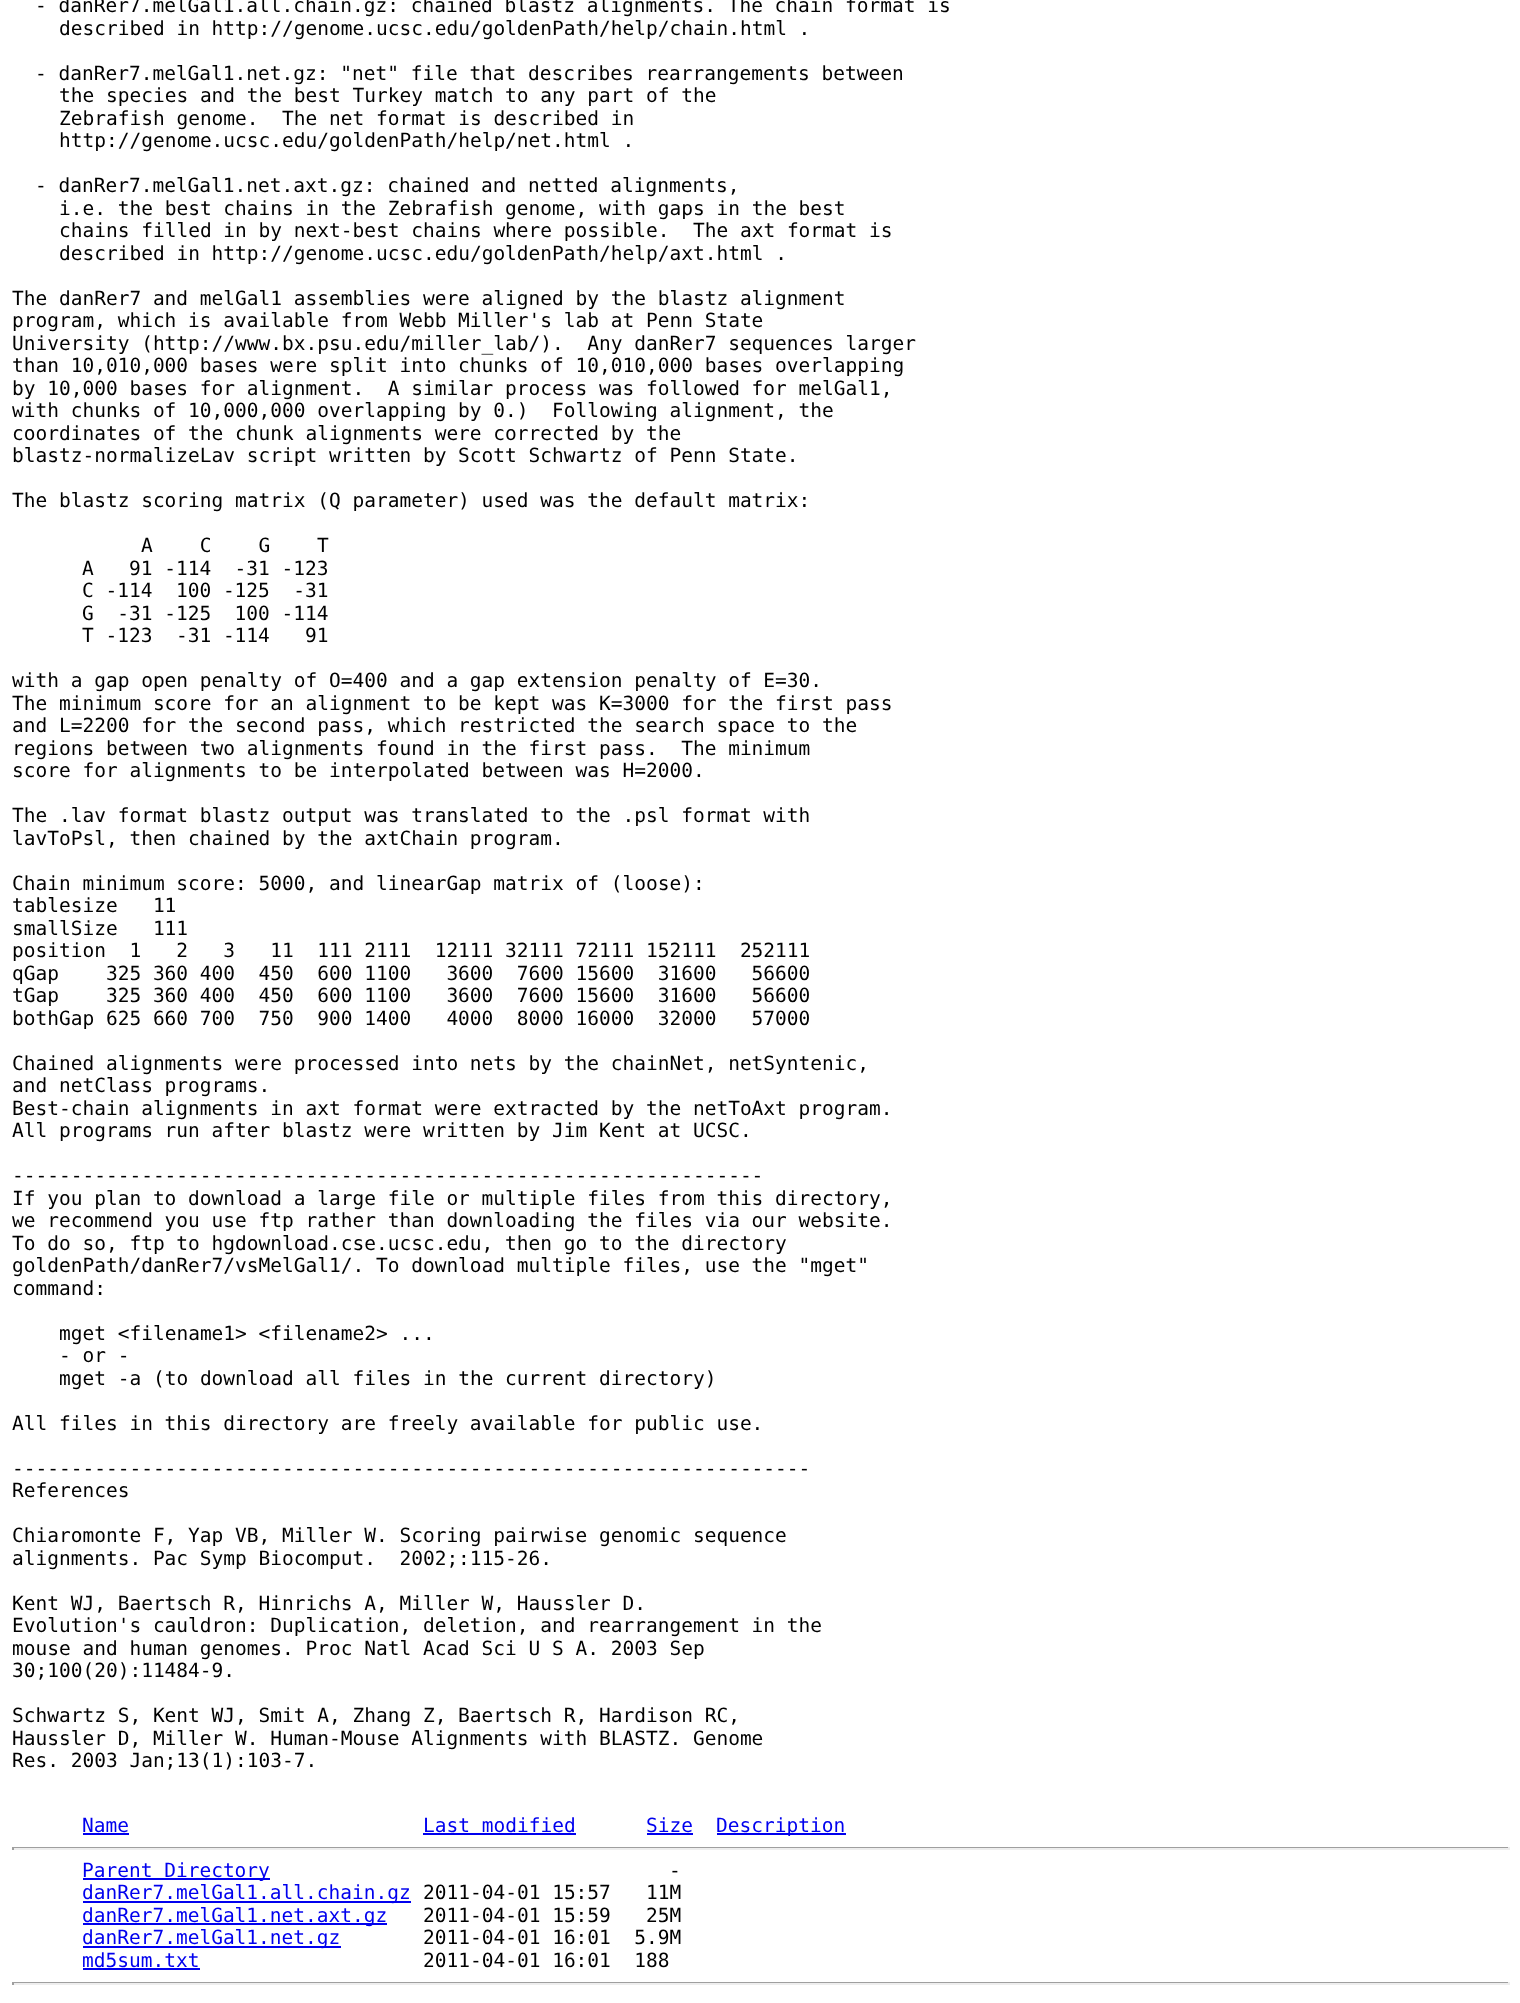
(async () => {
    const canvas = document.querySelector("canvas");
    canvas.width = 1520;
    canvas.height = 2003;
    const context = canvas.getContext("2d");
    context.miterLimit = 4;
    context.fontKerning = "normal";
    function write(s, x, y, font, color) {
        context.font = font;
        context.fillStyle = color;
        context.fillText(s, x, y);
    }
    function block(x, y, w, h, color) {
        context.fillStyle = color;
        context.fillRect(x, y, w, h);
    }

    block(0, 0, 1520, 2003, "rgb(255, 255, 255)");
    write("- danRer7.melGal1.all.chain.gz: chained blastz alignments. The chain format is", 35, 12, "19.5px DejaVu Sans Mono", "rgb(0, 0, 0)");
    write("described in http://genome.ucsc.edu/goldenPath/help/chain.html .", 59, 35, "19.5px DejaVu Sans Mono", "rgb(0, 0, 0)");
    write("- danRer7.melGal1.net.gz: \"net\" file that describes rearrangements between", 35, 80, "19.5px DejaVu Sans Mono", "rgb(0, 0, 0)");
    write("the species and the best Turkey match to any part of the", 59, 102, "19.5px DejaVu Sans Mono", "rgb(0, 0, 0)");
    write("Zebrafish genome.  The net format is described in", 59, 125, "19.5px DejaVu Sans Mono", "rgb(0, 0, 0)");
    write("http://genome.ucsc.edu/goldenPath/help/net.html .", 59, 147, "19.5px DejaVu Sans Mono", "rgb(0, 0, 0)");
    write("- danRer7.melGal1.net.axt.gz: chained and netted alignments,", 35, 192, "19.5px DejaVu Sans Mono", "rgb(0, 0, 0)");
    write("i.e. the best chains in the Zebrafish genome, with gaps in the best", 59, 215, "19.5px DejaVu Sans Mono", "rgb(0, 0, 0)");
    write("chains filled in by next-best chains where possible.  The axt format is", 59, 237, "19.5px DejaVu Sans Mono", "rgb(0, 0, 0)");
    write("described in http://genome.ucsc.edu/goldenPath/help/axt.html .", 59, 260, "19.5px DejaVu Sans Mono", "rgb(0, 0, 0)");
    write("The danRer7 and melGal1 assemblies were aligned by the blastz alignment", 12, 305, "19.5px DejaVu Sans Mono", "rgb(0, 0, 0)");
    write("program, which is available from Webb Miller's lab at Penn State", 12, 327, "19.5px DejaVu Sans Mono", "rgb(0, 0, 0)");
    write("University (http://www.bx.psu.edu/miller_lab/).  Any danRer7 sequences larger", 12, 350, "19.5px DejaVu Sans Mono", "rgb(0, 0, 0)");
    write("than 10,010,000 bases were split into chunks of 10,010,000 bases overlapping", 12, 372, "19.5px DejaVu Sans Mono", "rgb(0, 0, 0)");
    write("by 10,000 bases for alignment.  A similar process was followed for melGal1,", 12, 395, "19.5px DejaVu Sans Mono", "rgb(0, 0, 0)");
    write("with chunks of 10,000,000 overlapping by 0.)  Following alignment, the", 12, 417, "19.5px DejaVu Sans Mono", "rgb(0, 0, 0)");
    write("coordinates of the chunk alignments were corrected by the", 12, 440, "19.5px DejaVu Sans Mono", "rgb(0, 0, 0)");
    write("blastz-normalizeLav script written by Scott Schwartz of Penn State.", 12, 462, "19.5px DejaVu Sans Mono", "rgb(0, 0, 0)");
    write("The blastz scoring matrix (Q parameter) used was the default matrix:", 12, 507, "19.5px DejaVu Sans Mono", "rgb(0, 0, 0)");
    write("A    C    G    T", 141, 552, "19.5px DejaVu Sans Mono", "rgb(0, 0, 0)");
    write("A   91 -114  -31 -123", 82, 575, "19.5px DejaVu Sans Mono", "rgb(0, 0, 0)");
    write("C -114  100 -125  -31", 82, 597, "19.5px DejaVu Sans Mono", "rgb(0, 0, 0)");
    write("G  -31 -125  100 -114", 82, 620, "19.5px DejaVu Sans Mono", "rgb(0, 0, 0)");
    write("T -123  -31 -114   91", 82, 642, "19.5px DejaVu Sans Mono", "rgb(0, 0, 0)");
    write("with a gap open penalty of O=400 and a gap extension penalty of E=30.", 12, 687, "19.5px DejaVu Sans Mono", "rgb(0, 0, 0)");
    write("The minimum score for an alignment to be kept was K=3000 for the first pass", 12, 710, "19.5px DejaVu Sans Mono", "rgb(0, 0, 0)");
    write("and L=2200 for the second pass, which restricted the search space to the", 12, 732, "19.5px DejaVu Sans Mono", "rgb(0, 0, 0)");
    write("regions between two alignments found in the first pass.  The minimum", 12, 755, "19.5px DejaVu Sans Mono", "rgb(0, 0, 0)");
    write("score for alignments to be interpolated between was H=2000.", 12, 777, "19.5px DejaVu Sans Mono", "rgb(0, 0, 0)");
    write("The .lav format blastz output was translated to the .psl format with", 12, 822, "19.5px DejaVu Sans Mono", "rgb(0, 0, 0)");
    write("lavToPsl, then chained by the axtChain program.", 12, 845, "19.5px DejaVu Sans Mono", "rgb(0, 0, 0)");
    write("Chain minimum score: 5000, and linearGap matrix of (loose):", 12, 890, "19.5px DejaVu Sans Mono", "rgb(0, 0, 0)");
    write("tablesize   11", 12, 912, "19.5px DejaVu Sans Mono", "rgb(0, 0, 0)");
    write("smallSize   111", 12, 935, "19.5px DejaVu Sans Mono", "rgb(0, 0, 0)");
    write("position  1   2   3   11  111 2111  12111 32111 72111 152111  252111", 12, 957, "19.5px DejaVu Sans Mono", "rgb(0, 0, 0)");
    write("qGap    325 360 400  450  600 1100   3600  7600 15600  31600   56600", 12, 980, "19.5px DejaVu Sans Mono", "rgb(0, 0, 0)");
    write("tGap    325 360 400  450  600 1100   3600  7600 15600  31600   56600", 12, 1002, "19.5px DejaVu Sans Mono", "rgb(0, 0, 0)");
    write("bothGap 625 660 700  750  900 1400   4000  8000 16000  32000   57000", 12, 1025, "19.5px DejaVu Sans Mono", "rgb(0, 0, 0)");
    write("Chained alignments were processed into nets by the chainNet, netSyntenic,", 12, 1070, "19.5px DejaVu Sans Mono", "rgb(0, 0, 0)");
    write("and netClass programs.", 12, 1092, "19.5px DejaVu Sans Mono", "rgb(0, 0, 0)");
    write("Best-chain alignments in axt format were extracted by the netToAxt program.", 12, 1115, "19.5px DejaVu Sans Mono", "rgb(0, 0, 0)");
    write("All programs run after blastz were written by Jim Kent at UCSC.", 12, 1137, "19.5px DejaVu Sans Mono", "rgb(0, 0, 0)");
    write("----------------------------------------------------------------", 12, 1182, "19.5px DejaVu Sans Mono", "rgb(0, 0, 0)");
    write("If you plan to download a large file or multiple files from this directory,", 12, 1205, "19.5px DejaVu Sans Mono", "rgb(0, 0, 0)");
    write("we recommend you use ftp rather than downloading the files via our website.", 12, 1227, "19.5px DejaVu Sans Mono", "rgb(0, 0, 0)");
    write("To do so, ftp to hgdownload.cse.ucsc.edu, then go to the directory", 12, 1250, "19.5px DejaVu Sans Mono", "rgb(0, 0, 0)");
    write("goldenPath/danRer7/vsMelGal1/. To download multiple files, use the \"mget\"", 12, 1272, "19.5px DejaVu Sans Mono", "rgb(0, 0, 0)");
    write("command:", 12, 1295, "19.5px DejaVu Sans Mono", "rgb(0, 0, 0)");
    write("mget <filename1> <filename2> ...", 59, 1340, "19.5px DejaVu Sans Mono", "rgb(0, 0, 0)");
    write("- or -", 59, 1362, "19.5px DejaVu Sans Mono", "rgb(0, 0, 0)");
    write("mget -a (to download all files in the current directory)", 59, 1385, "19.5px DejaVu Sans Mono", "rgb(0, 0, 0)");
    write("All files in this directory are freely available for public use.", 12, 1430, "19.5px DejaVu Sans Mono", "rgb(0, 0, 0)");
    write("--------------------------------------------------------------------", 12, 1475, "19.5px DejaVu Sans Mono", "rgb(0, 0, 0)");
    write("References", 12, 1497, "19.5px DejaVu Sans Mono", "rgb(0, 0, 0)");
    write("Chiaromonte F, Yap VB, Miller W. Scoring pairwise genomic sequence", 12, 1542, "19.5px DejaVu Sans Mono", "rgb(0, 0, 0)");
    write("alignments. Pac Symp Biocomput.  2002;:115-26.", 12, 1565, "19.5px DejaVu Sans Mono", "rgb(0, 0, 0)");
    write("Kent WJ, Baertsch R, Hinrichs A, Miller W, Haussler D.", 12, 1610, "19.5px DejaVu Sans Mono", "rgb(0, 0, 0)");
    write("Evolution's cauldron: Duplication, deletion, and rearrangement in the", 12, 1632, "19.5px DejaVu Sans Mono", "rgb(0, 0, 0)");
    write("mouse and human genomes. Proc Natl Acad Sci U S A. 2003 Sep", 12, 1655, "19.5px DejaVu Sans Mono", "rgb(0, 0, 0)");
    write("30;100(20):11484-9.", 12, 1677, "19.5px DejaVu Sans Mono", "rgb(0, 0, 0)");
    write("Schwartz S, Kent WJ, Smit A, Zhang Z, Baertsch R, Hardison RC,", 12, 1722, "19.5px DejaVu Sans Mono", "rgb(0, 0, 0)");
    write("Haussler D, Miller W. Human-Mouse Alignments with BLASTZ. Genome", 12, 1745, "19.5px DejaVu Sans Mono", "rgb(0, 0, 0)");
    write("Res. 2003 Jan;13(1):103-7.", 12, 1767, "19.5px DejaVu Sans Mono", "rgb(0, 0, 0)");
    write("Name", 82, 1832, "19.5px DejaVu Sans Mono", "rgb(0, 0, 238)");
    block(83, 1833, 46, 2, "rgb(0, 0, 238)");
    write("Last modified", 423, 1832, "19.5px DejaVu Sans Mono", "rgb(0, 0, 238)");
    block(423, 1833, 153, 2, "rgb(0, 0, 238)");
    write("Size", 646, 1832, "19.5px DejaVu Sans Mono", "rgb(0, 0, 238)");
    block(647, 1833, 46, 2, "rgb(0, 0, 238)");
    block(717, 1833, 129, 2, "rgb(0, 0, 238)");
    write("Description", 716, 1832, "19.5px DejaVu Sans Mono", "rgb(0, 0, 238)");
    block(12, 1847, 1497, 1, "rgb(159, 159, 159)");
    block(1508, 1847, 2, 3, "rgb(238, 238, 238)");
    block(12, 1848, 1497, 2, "rgb(238, 238, 238)");
    block(12, 1847, 2, 3, "rgb(159, 159, 159)");
    block(83, 1878, 187, 2, "rgb(0, 0, 238)");
    write("Parent Directory", 82, 1877, "19.5px DejaVu Sans Mono", "rgb(0, 0, 238)");
    write("-", 669, 1877, "19.5px DejaVu Sans Mono", "rgb(0, 0, 0)");
    block(83, 1901, 328, 2, "rgb(0, 0, 238)");
    write("danRer7.melGal1.all.chain.gz", 82, 1899, "19.5px DejaVu Sans Mono", "rgb(0, 0, 238)");
    write("2011-04-01 15:57   11M", 423, 1899, "19.5px DejaVu Sans Mono", "rgb(0, 0, 0)");
    block(83, 1923, 304, 2, "rgb(0, 0, 238)");
    write("danRer7.melGal1.net.axt.gz", 82, 1922, "19.5px DejaVu Sans Mono", "rgb(0, 0, 238)");
    write("2011-04-01 15:59   25M", 423, 1922, "19.5px DejaVu Sans Mono", "rgb(0, 0, 0)");
    block(83, 1946, 258, 2, "rgb(0, 0, 238)");
    write("danRer7.melGal1.net.gz", 82, 1944, "19.5px DejaVu Sans Mono", "rgb(0, 0, 238)");
    write("2011-04-01 16:01  5.9M", 423, 1944, "19.5px DejaVu Sans Mono", "rgb(0, 0, 0)");
    write("md5sum.txt", 82, 1967, "19.5px DejaVu Sans Mono", "rgb(0, 0, 238)");
    block(83, 1968, 117, 2, "rgb(0, 0, 238)");
    write("2011-04-01 16:01  188", 423, 1967, "19.5px DejaVu Sans Mono", "rgb(0, 0, 0)");
    block(12, 1982, 1497, 1, "rgb(159, 159, 159)");
    block(1508, 1982, 2, 3, "rgb(238, 238, 238)");
    block(12, 1983, 1497, 2, "rgb(238, 238, 238)");
    block(12, 1982, 2, 3, "rgb(159, 159, 159)");
})();
